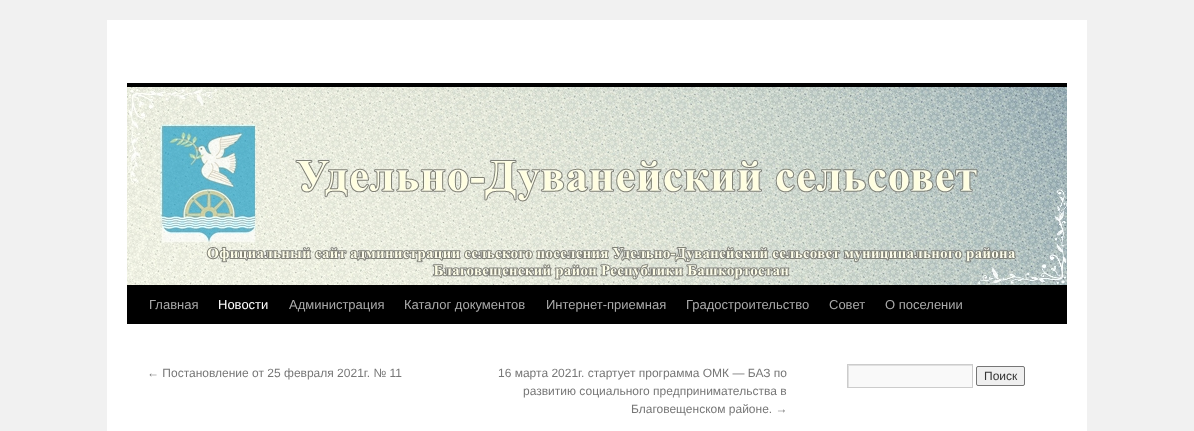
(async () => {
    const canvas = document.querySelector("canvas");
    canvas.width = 1194;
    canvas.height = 431;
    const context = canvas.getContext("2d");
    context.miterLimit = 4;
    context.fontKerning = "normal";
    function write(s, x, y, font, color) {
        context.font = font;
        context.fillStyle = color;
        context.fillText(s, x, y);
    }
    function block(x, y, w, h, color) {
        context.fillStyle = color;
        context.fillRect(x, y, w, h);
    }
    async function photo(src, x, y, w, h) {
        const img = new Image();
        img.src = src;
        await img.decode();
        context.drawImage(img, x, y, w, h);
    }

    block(0, 0, 1194, 431, "rgb(241, 241, 241)");
    block(107, 20, 980, 411, "rgb(255, 255, 255)");
    block(127, 83, 940, 4, "rgb(0, 0, 0)");
    block(127, 285, 940, 39, "rgb(0, 0, 0)");
    await photo("media/1.png", 127, 87, 940, 198);
    write("Главная", 149, 309, "13px Liberation Sans", "rgb(170, 170, 170)");
    write("Новости", 218, 309, "13px Liberation Sans", "rgb(255, 255, 255)");
    write("Администрация", 289, 309, "13px Liberation Sans", "rgb(170, 170, 170)");
    write("Каталог документов", 404, 309, "13px Liberation Sans", "rgb(170, 170, 170)");
    write("Интернет-приемная", 546, 309, "13px Liberation Sans", "rgb(170, 170, 170)");
    write("Градостроительство", 686, 309, "13px Liberation Sans", "rgb(170, 170, 170)");
    write("Совет", 829, 309, "13px Liberation Sans", "rgb(170, 170, 170)");
    write("О поселении", 885, 309, "13px Liberation Sans", "rgb(170, 170, 170)");
    write("← Постановление от 25 февраля 2021г. № 11", 147, 377, "12px Liberation Sans", "rgb(119, 119, 119)");
    write("16 марта 2021г. стартует программа ОМК — БАЗ по", 498, 377, "12px Liberation Sans", "rgb(119, 119, 119)");
    write("развитию социального предпринимательства в", 523, 395, "12px Liberation Sans", "rgb(119, 119, 119)");
    write("Благовещенском районе. →", 631, 413, "12px Liberation Sans", "rgb(119, 119, 119)");
    block(849, 366, 123, 21, "rgb(249, 249, 249)");
    context.save();
    context.beginPath();
    context.rect(848, 365, 124, 22);
    context.clip();
    context.fillStyle = "rgb(224, 224, 224)";
    context.beginPath();
    context.moveTo(749, 266);
    context.lineTo(1071, 266);
    context.lineTo(1071, 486);
    context.lineTo(749, 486);
    context.closePath();
    context.moveTo(849, 366);
    context.lineTo(973, 366);
    context.lineTo(973, 388);
    context.lineTo(849, 388);
    context.closePath();
    context.fill("evenodd");
    context.restore();
    context.strokeStyle = "rgb(204, 204, 204)";
    context.strokeRect(847.5, 364.5, 125, 23);
    context.fillStyle = "rgb(239, 239, 239)";
    context.beginPath();
    context.roundRect(976.5, 366.5, 48, 19, 1.5);
    context.fill();
    context.strokeStyle = "rgb(118, 118, 118)";
    context.stroke();
    write("Поиск", 984, 380, "12px Liberation Sans", "rgb(51, 51, 51)");
})();
